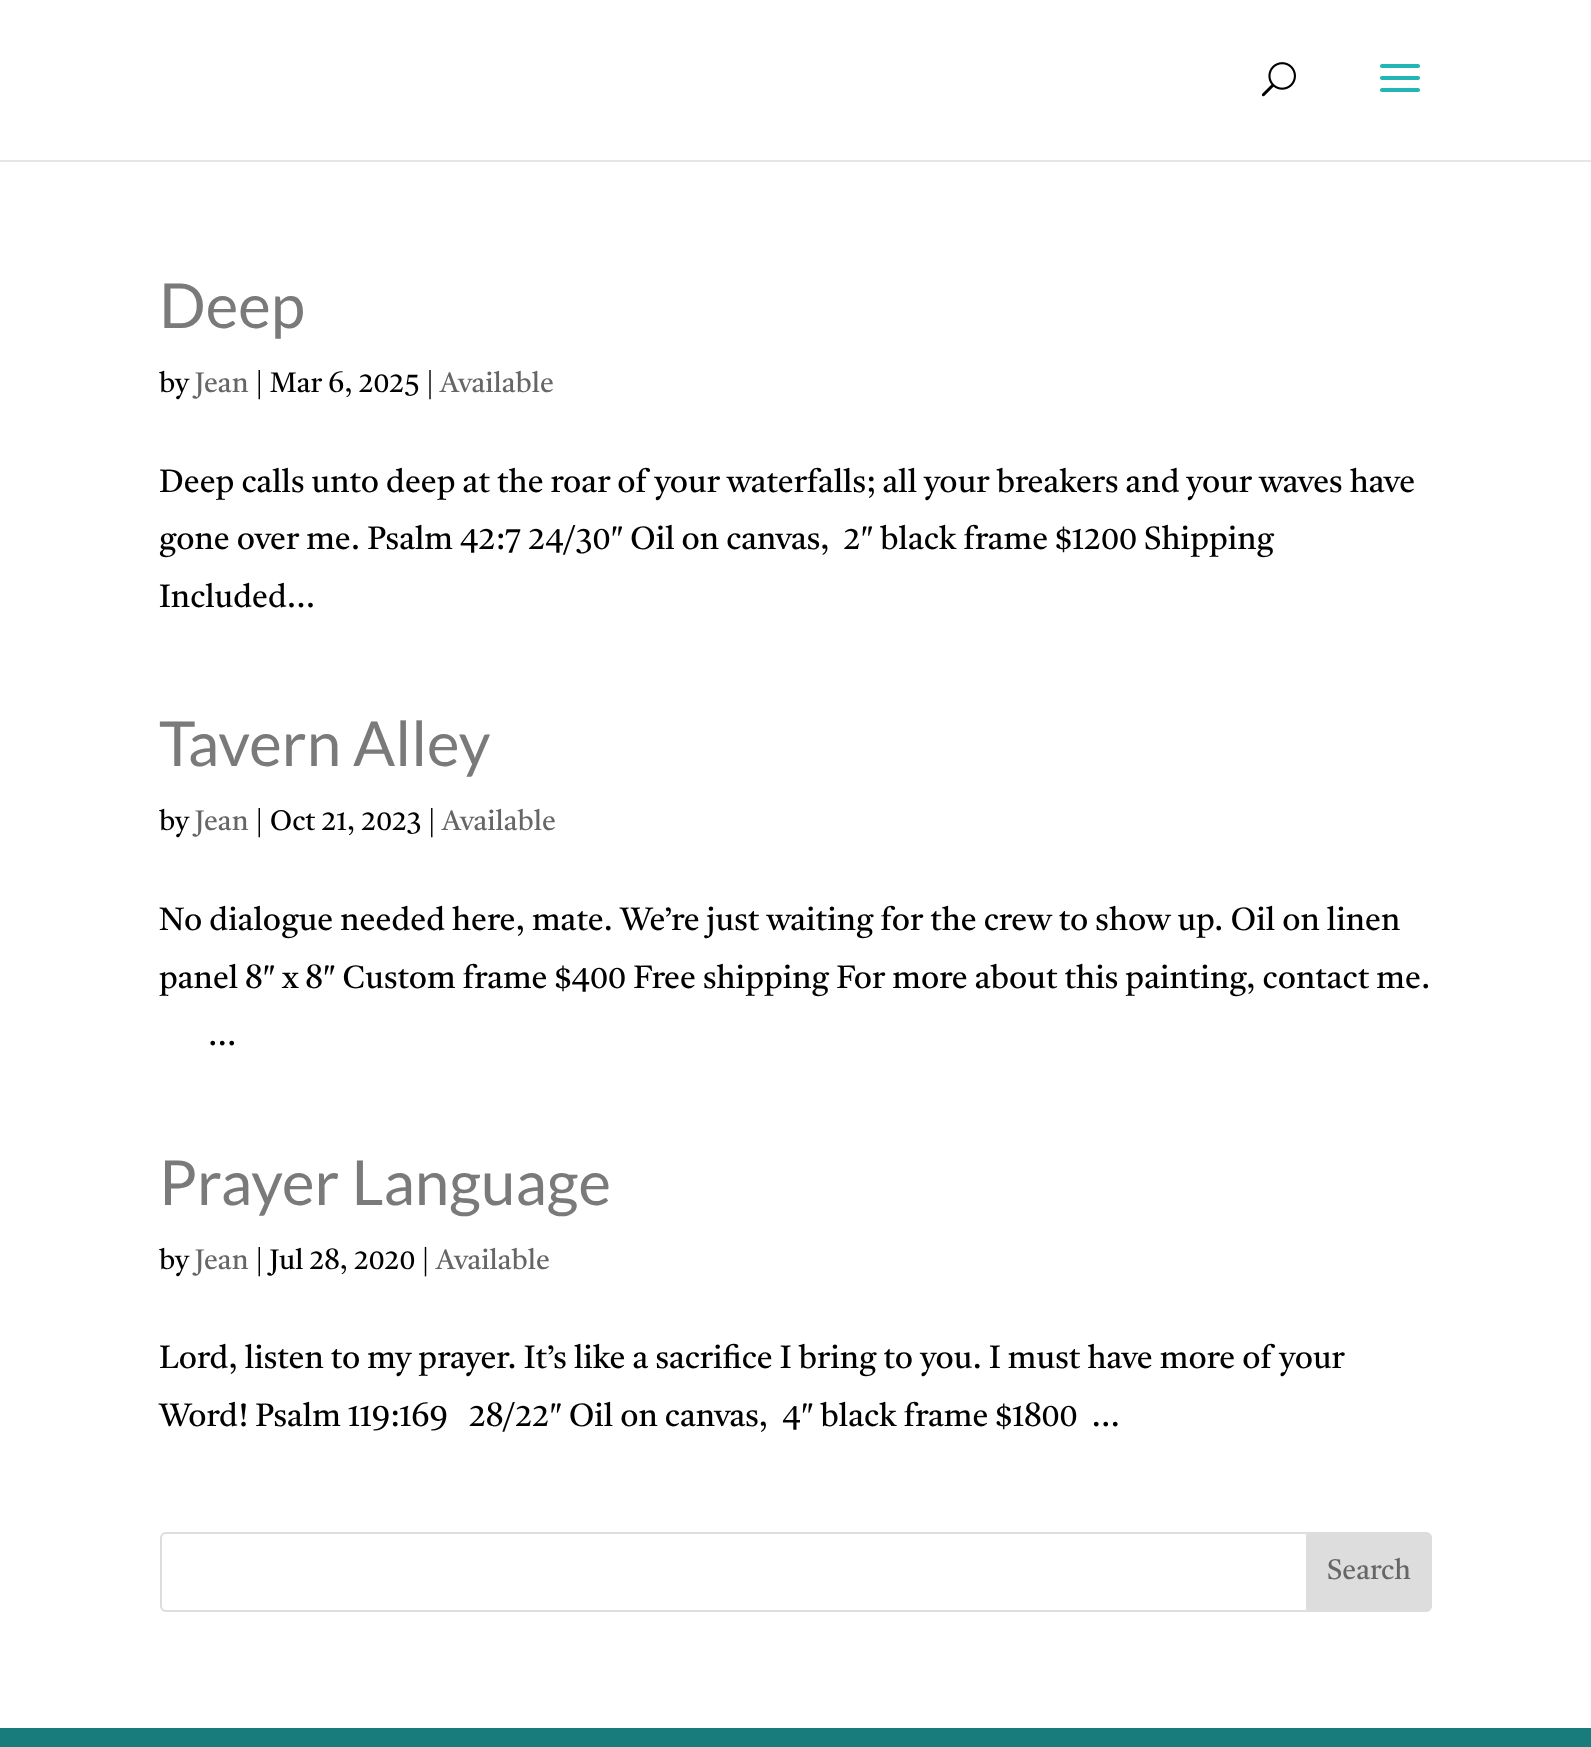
(async () => {
    const canvas = document.querySelector("canvas");
    canvas.width = 1591;
    canvas.height = 1747;
    const context = canvas.getContext("2d");
    context.miterLimit = 4;
    context.fontKerning = "normal";
    function write(s, x, y, font, color) {
        context.font = font;
        context.fillStyle = color;
        context.fillText(s, x, y);
    }
    function block(x, y, w, h, color) {
        context.fillStyle = color;
        context.fillRect(x, y, w, h);
    }
    async function photo(src, x, y, w, h) {
        const img = new Image();
        img.src = src;
        await img.decode();
        context.drawImage(img, x, y, w, h);
    }

    block(0, 0, 1591, 1747, "rgb(255, 255, 255)");
    block(0, 160, 1591, 2, "rgb(230, 230, 230)");
    await photo("media/1.png", 1261, 62, 35, 35);
    await photo("media/2.png", 1380, 64, 40, 28);
    write("Deep", 159, 328, "62px Lato", "rgb(122, 122, 122)");
    write("by", 159, 392, "28px Castoro", "rgb(0, 0, 0)");
    write("Jean", 195, 392, "28px Castoro", "rgb(102, 102, 102)");
    write("| Mar 6, 2025 |", 255, 392, "28px Castoro", "rgb(0, 0, 0)");
    write("Available", 440, 392, "28px Castoro", "rgb(102, 102, 102)");
    write("Deep calls unto deep at the roar of your waterfalls; all your breakers and your waves have", 159, 492, "32px Castoro", "rgb(0, 0, 0)");
    write("gone over me. Psalm 42:7 24/30″ Oil on canvas,  2″ black frame $1200 Shipping", 159, 549, "32px Castoro", "rgb(0, 0, 0)");
    write("Included...", 159, 607, "32px Castoro", "rgb(0, 0, 0)");
    write("Tavern Alley", 159, 766, "62px Lato", "rgb(122, 122, 122)");
    write("by", 159, 830, "28px Castoro", "rgb(0, 0, 0)");
    write("Jean", 195, 830, "28px Castoro", "rgb(102, 102, 102)");
    write("| Oct 21, 2023 |", 255, 830, "28px Castoro", "rgb(0, 0, 0)");
    write("Available", 442, 830, "28px Castoro", "rgb(102, 102, 102)");
    write("No dialogue needed here, mate. We’re just waiting for the crew to show up. Oil on linen", 159, 930, "32px Castoro", "rgb(0, 0, 0)");
    write("panel 8″ x 8″ Custom frame $400 Free shipping For more about this painting, contact me.", 159, 988, "32px Castoro", "rgb(0, 0, 0)");
    write("...", 208, 1045, "32px Castoro", "rgb(0, 0, 0)");
    write("Prayer Language", 159, 1205, "62px Lato", "rgb(122, 122, 122)");
    write("by", 159, 1269, "28px Castoro", "rgb(0, 0, 0)");
    write("Jean", 195, 1269, "28px Castoro", "rgb(102, 102, 102)");
    write("| Jul 28, 2020 |", 255, 1269, "28px Castoro", "rgb(0, 0, 0)");
    write("Available", 436, 1269, "28px Castoro", "rgb(102, 102, 102)");
    write("Lord, listen to my prayer. It’s like a sacrifice I bring to you. I must have more of your", 159, 1368, "32px Castoro", "rgb(0, 0, 0)");
    write("Word! Psalm 119:169   28/22″ Oil on canvas,  4″ black frame $1800  ...", 159, 1426, "32px Castoro", "rgb(0, 0, 0)");
    context.beginPath();
    context.roundRect(161, 1533, 1270, 78, 5);
    context.strokeStyle = "rgb(221, 221, 221)";
    context.lineWidth = 2;
    context.stroke();
    context.fillStyle = "rgb(221, 221, 221)";
    context.beginPath();
    context.roundRect(1307, 1533, 124, 78, [0, 5, 5, 0]);
    context.fill();
    context.stroke();
    write("Search", 1327, 1579, "28px Castoro", "rgb(102, 102, 102)");
    block(0, 1728, 1591, 19, "rgb(24, 124, 124)");
})();
